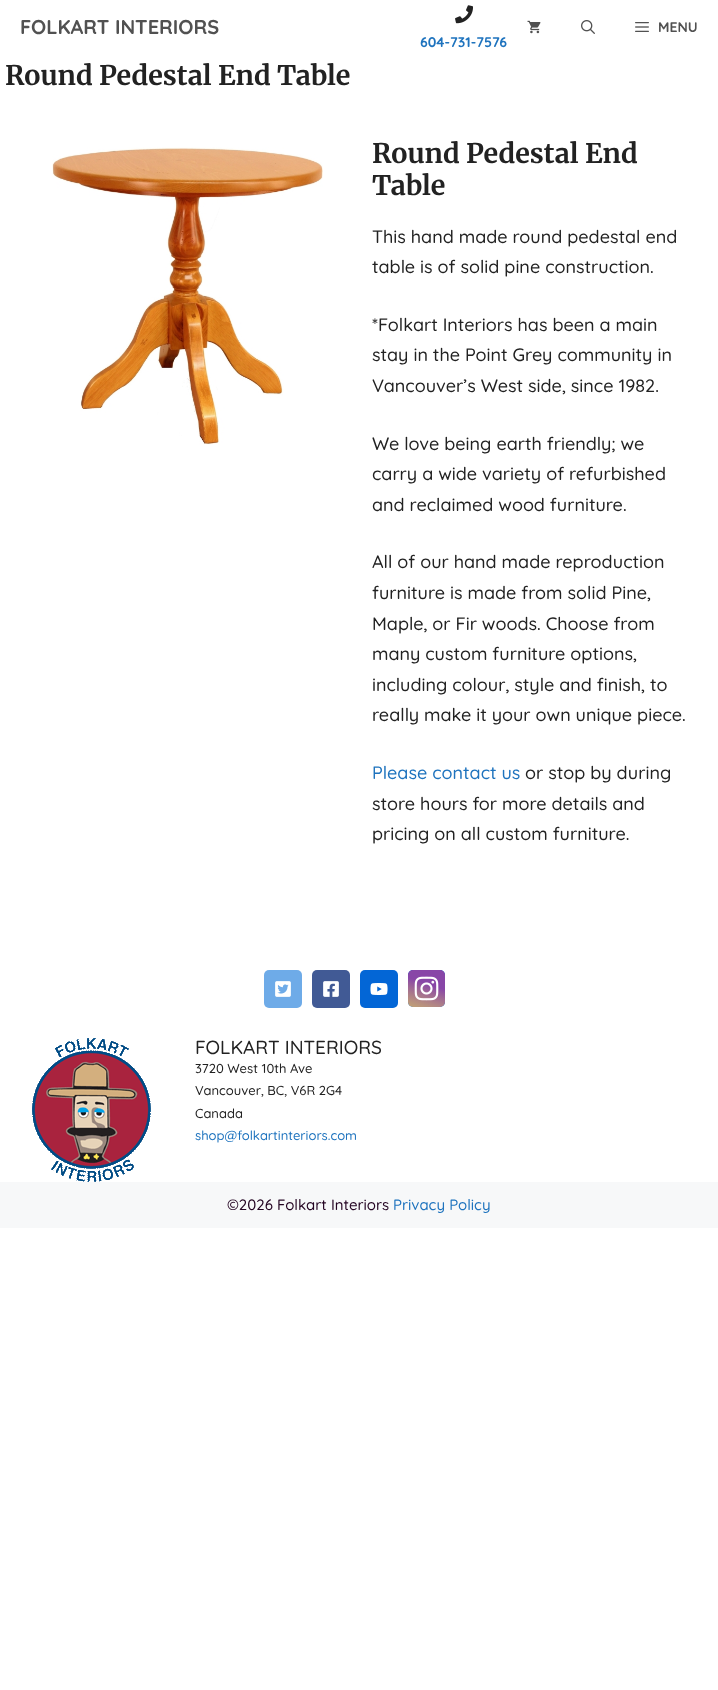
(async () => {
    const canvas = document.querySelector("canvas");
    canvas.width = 718;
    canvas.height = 1690;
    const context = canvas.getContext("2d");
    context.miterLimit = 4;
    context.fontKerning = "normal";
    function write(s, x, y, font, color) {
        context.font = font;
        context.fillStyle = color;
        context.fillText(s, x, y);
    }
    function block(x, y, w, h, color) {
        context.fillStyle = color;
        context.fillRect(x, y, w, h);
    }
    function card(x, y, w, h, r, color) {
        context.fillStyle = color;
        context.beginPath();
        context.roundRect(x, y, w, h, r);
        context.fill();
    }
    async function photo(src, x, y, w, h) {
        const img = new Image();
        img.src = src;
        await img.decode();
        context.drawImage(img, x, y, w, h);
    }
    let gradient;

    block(0, 0, 718, 1690, "rgb(255, 255, 255)");
    write("FOLKART INTERIORS", 20, 34, "bold 20px Quicksand", "rgb(81, 81, 81)");
    await photo("media/1.png", 527, 20, 14, 14);
    await photo("media/2.png", 581, 20, 14, 14);
    await photo("media/3.png", 635, 22, 14, 10);
    write("MENU", 658, 32, "bold 14px Quicksand", "rgb(81, 81, 81)");
    await photo("media/4.png", 455, 5, 18, 19);
    write("604-731-7576", 420, 47, "bold 14px Quicksand", "rgb(30, 115, 190)");
    write("Round Pedestal End Table", 5, 85, "bold 27px Merriweather", "rgb(34, 34, 34)");
    await photo("media/5.png", 52, 147, 271, 298);
    write("Round Pedestal End", 372, 163, "bold 27px Merriweather", "rgb(34, 34, 34)");
    write("Table", 372, 195, "bold 27px Merriweather", "rgb(34, 34, 34)");
    write("This hand made round pedestal end", 372, 243, "500 18px Quicksand", "rgb(34, 34, 34)");
    write("table is of solid pine construction.", 372, 273, "500 18px Quicksand", "rgb(34, 34, 34)");
    write("*Folkart Interiors has been a main", 372, 331, "500 18px Quicksand", "rgb(34, 34, 34)");
    write("stay in the Point Grey community in", 372, 361, "500 18px Quicksand", "rgb(34, 34, 34)");
    write("Vancouver’s West side, since 1982.", 372, 392, "500 18px Quicksand", "rgb(34, 34, 34)");
    write("We love being earth friendly; we", 372, 450, "500 18px Quicksand", "rgb(34, 34, 34)");
    write("carry a wide variety of refurbished", 372, 480, "500 18px Quicksand", "rgb(34, 34, 34)");
    write("and reclaimed wood furniture.", 372, 511, "500 18px Quicksand", "rgb(34, 34, 34)");
    write("All of our hand made reproduction", 372, 568, "500 18px Quicksand", "rgb(34, 34, 34)");
    write("furniture is made from solid Pine,", 372, 599, "500 18px Quicksand", "rgb(34, 34, 34)");
    write("Maple, or Fir woods. Choose from", 372, 630, "500 18px Quicksand", "rgb(34, 34, 34)");
    write("many custom furniture options,", 372, 660, "500 18px Quicksand", "rgb(34, 34, 34)");
    write("including colour, style and finish, to", 372, 691, "500 18px Quicksand", "rgb(34, 34, 34)");
    write("really make it your own unique piece.", 372, 721, "500 18px Quicksand", "rgb(34, 34, 34)");
    write("Please contact us", 372, 779, "500 18px Quicksand", "rgb(30, 115, 190)");
    write("or stop by during", 525, 779, "500 18px Quicksand", "rgb(34, 34, 34)");
    write("store hours for more details and", 372, 810, "500 18px Quicksand", "rgb(34, 34, 34)");
    write("pricing on all custom furniture.", 372, 840, "500 18px Quicksand", "rgb(34, 34, 34)");
    card(264, 970, 38, 38, 5, "rgb(110, 171, 232)");
    await photo("media/6.png", 275, 981, 16, 16);
    card(312, 970, 38, 38, 5, "rgb(65, 90, 149)");
    await photo("media/7.png", 323, 981, 16, 16);
    card(360, 970, 38, 38, 5, "rgb(3, 102, 214)");
    await photo("media/8.png", 370, 983, 18, 12);
    card(408, 970, 37, 37, 5, "rgb(3, 102, 214)");
    gradient = context.createLinearGradient(434, 966, 419, 1011);
    gradient.addColorStop(0.4, "rgb(136, 70, 167)");
    gradient.addColorStop(1, "rgba(239, 178, 94, 0.81)");
    context.fillStyle = gradient;
    context.beginPath();
    context.roundRect(408, 970, 37, 37, 5);
    context.fill();
    await photo("media/9.png", 414, 976, 25, 25);
    await photo("media/10.png", 32, 1038, 119, 144);
    write("FOLKART INTERIORS", 195, 1054, "500 19px Quicksand", "rgb(34, 34, 34)");
    write("3720 West 10th Ave", 195, 1073, "500 13px Quicksand", "rgb(34, 34, 34)");
    write("Vancouver, BC, V6R 2G4", 195, 1095, "500 13px Quicksand", "rgb(34, 34, 34)");
    write("Canada", 195, 1118, "500 13px Quicksand", "rgb(34, 34, 34)");
    write("shop@folkartinteriors.com", 195, 1140, "500 13px Quicksand", "rgb(30, 115, 190)");
    block(0, 1182, 718, 46, "rgb(247, 248, 249)");
    write("©2026 Folkart Interiors", 227, 1210, "500 15px Quicksand", "rgb(35, 3, 33)");
    write("Privacy Policy", 393, 1210, "500 15px Quicksand", "rgb(30, 115, 190)");
})();
